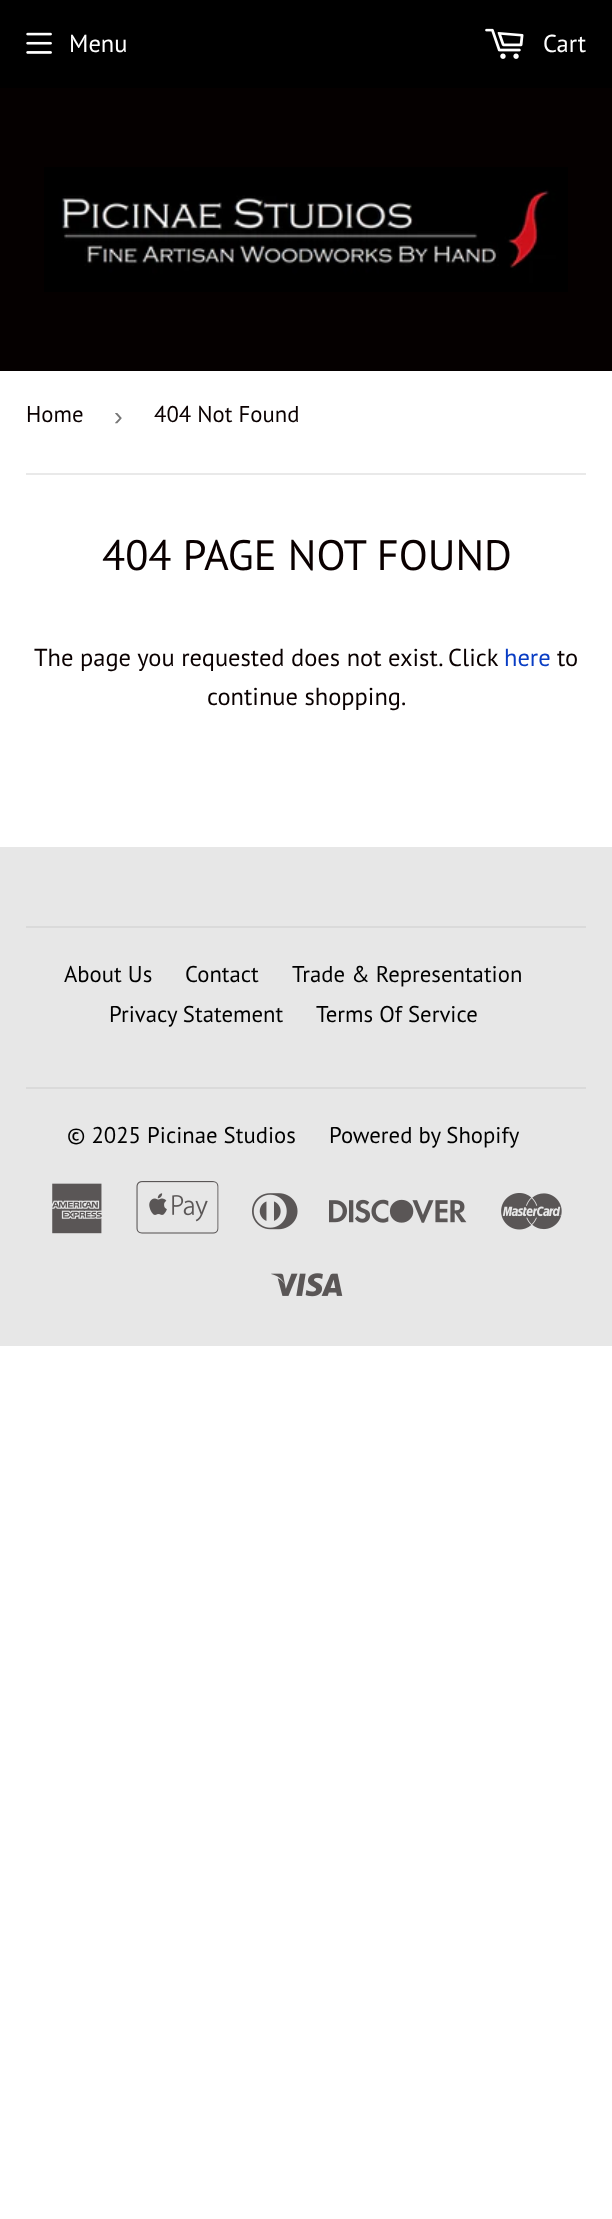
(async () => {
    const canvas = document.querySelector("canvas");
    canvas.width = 612;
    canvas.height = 2219;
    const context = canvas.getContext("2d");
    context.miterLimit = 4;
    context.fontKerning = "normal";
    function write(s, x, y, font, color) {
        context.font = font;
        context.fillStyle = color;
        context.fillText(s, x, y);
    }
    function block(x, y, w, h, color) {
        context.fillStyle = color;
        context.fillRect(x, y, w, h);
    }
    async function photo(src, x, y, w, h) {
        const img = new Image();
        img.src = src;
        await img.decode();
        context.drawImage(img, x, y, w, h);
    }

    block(0, 0, 612, 2219, "rgb(255, 255, 255)");
    block(0, 0, 612, 88, "rgb(0, 0, 0)");
    await photo("media/1.png", 26, 32, 26, 22);
    write("Menu", 69, 52, "24.5px PT Sans", "rgb(255, 255, 255)");
    await photo("media/2.png", 485, 28, 39, 31);
    write("Cart", 543, 52, "24.5px PT Sans", "rgb(255, 255, 255)");
    block(0, 88, 612, 283, "rgb(5, 0, 0)");
    await photo("media/3.png", 44, 167, 524, 125);
    block(26, 473, 560, 2, "rgb(233, 233, 233)");
    write("Home", 26, 422, "22.75px PT Sans", "rgb(10, 0, 0)");
    write("›", 114, 425, "26px Liberation Sans", "rgb(118, 118, 118)");
    write("404 Not Found", 154, 422, "22.75px PT Sans", "rgb(10, 0, 0)");
    write("404 PAGE NOT FOUND", 102, 570, "42.5px PT Sans", "rgb(10, 0, 0)");
    write("The page you requested does not exist. Click", 34, 666, "24.5px PT Sans", "rgb(10, 0, 0)");
    write("here", 504, 666, "24.5px PT Sans", "rgb(9, 61, 196)");
    write("to", 557, 666, "24.5px PT Sans", "rgb(10, 0, 0)");
    write("continue shopping.", 207, 705, "24.5px PT Sans", "rgb(10, 0, 0)");
    block(0, 847, 612, 499, "rgb(231, 231, 231)");
    block(26, 926, 560, 2, "rgb(218, 218, 218)");
    write("About Us", 64, 982, "22.75px PT Sans", "rgb(0, 0, 0)");
    write("Contact", 185, 982, "22.75px PT Sans", "rgb(0, 0, 0)");
    write("Trade & Representation", 292, 982, "22.75px PT Sans", "rgb(0, 0, 0)");
    write("Privacy Statement", 109, 1022, "22.75px PT Sans", "rgb(0, 0, 0)");
    write("Terms Of Service", 316, 1022, "22.75px PT Sans", "rgb(0, 0, 0)");
    block(26, 1087, 560, 2, "rgb(218, 218, 218)");
    write("© 2025 Picinae Studios", 67, 1143, "22.75px PT Sans", "rgb(0, 0, 0)");
    write("Powered by Shopify", 329, 1143, "22.75px PT Sans", "rgb(0, 0, 0)");
    await photo("media/4.png", 52, 1183, 50, 51);
    await photo("media/5.png", 136, 1181, 83, 53);
    await photo("media/6.png", 252, 1193, 46, 37);
    await photo("media/7.png", 329, 1199, 138, 24);
    await photo("media/8.png", 501, 1193, 61, 37);
    await photo("media/9.png", 271, 1273, 72, 24);
})();
